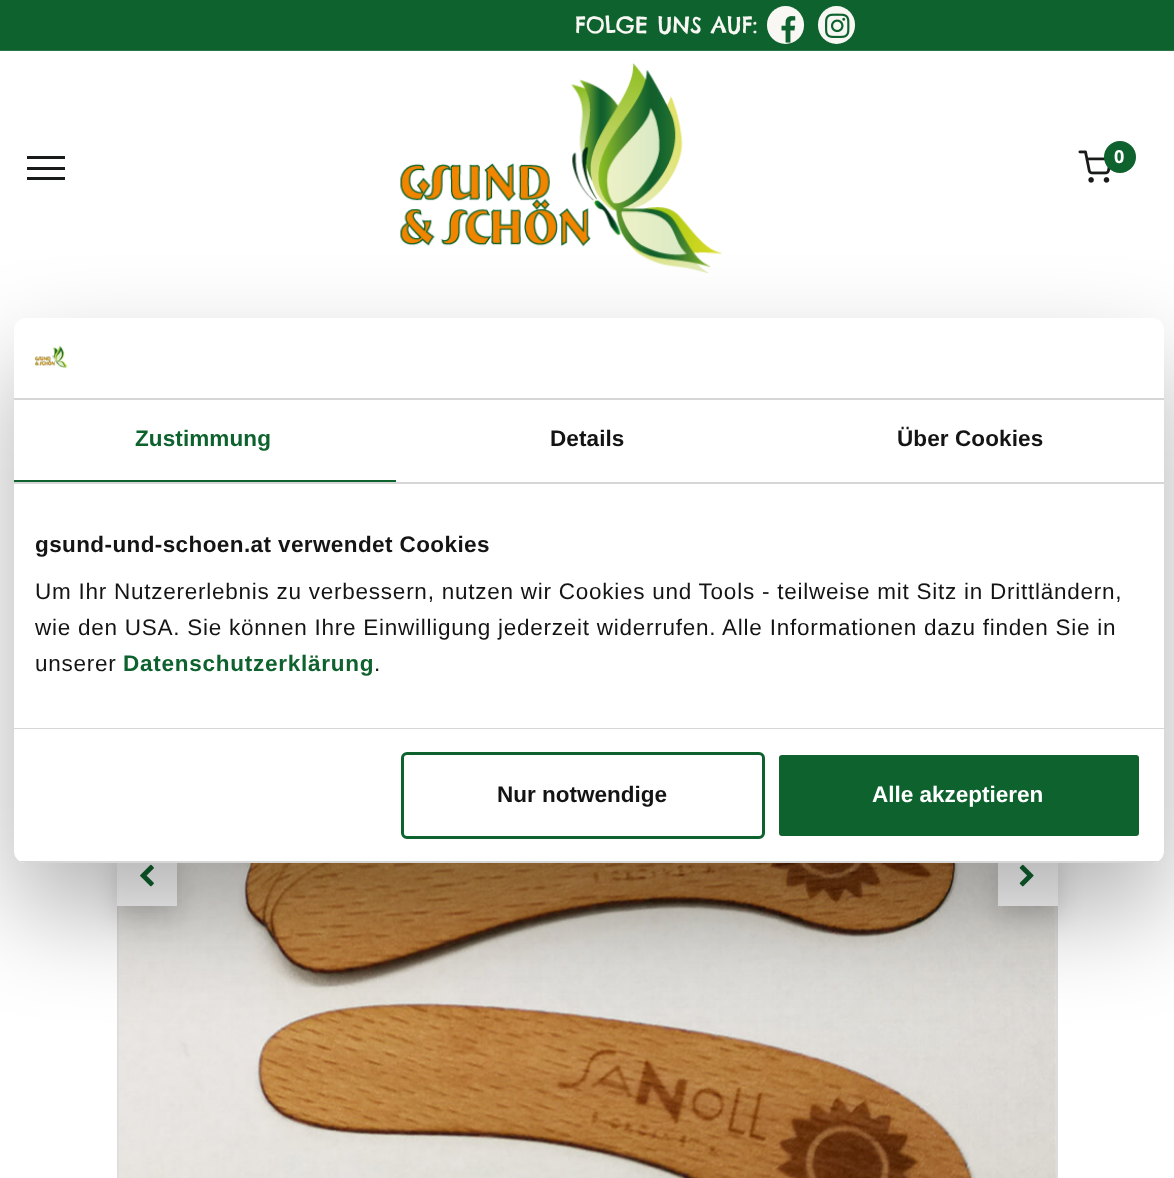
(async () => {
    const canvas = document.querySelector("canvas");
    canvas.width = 1174;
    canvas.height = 1178;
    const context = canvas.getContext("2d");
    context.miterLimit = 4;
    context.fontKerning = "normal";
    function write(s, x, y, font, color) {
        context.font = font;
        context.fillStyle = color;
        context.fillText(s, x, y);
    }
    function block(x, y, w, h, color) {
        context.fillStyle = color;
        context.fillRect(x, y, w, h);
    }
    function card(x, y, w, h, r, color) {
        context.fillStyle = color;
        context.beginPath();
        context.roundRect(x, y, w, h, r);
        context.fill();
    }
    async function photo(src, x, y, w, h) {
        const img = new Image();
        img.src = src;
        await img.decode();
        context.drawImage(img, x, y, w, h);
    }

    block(0, 0, 1174, 1178, "rgb(255, 255, 255)");
    block(0, 0, 1174, 50, "rgb(14, 98, 46)");
    block(0, 50, 1174, 1, "rgb(43, 117, 71)");
    write("FOLGE UNS AUF:", 575, 33, "22.5px Chelsea Market", "rgb(249, 247, 243)");
    card(767, 6, 37, 38, 18.5, "rgb(249, 247, 243)");
    await photo("media/1.png", 781, 16, 15, 27);
    card(818, 6, 37, 38, 18.5, "rgb(249, 247, 243)");
    await photo("media/2.png", 825, 13, 25, 25);
    block(27, 156, 38, 3, "rgb(25, 26, 26)");
    block(27, 167, 38, 3, "rgb(25, 26, 26)");
    block(27, 177, 38, 3, "rgb(25, 26, 26)");
    await photo("media/3.png", 400, 63, 322, 210);
    await photo("media/4.png", 1078, 150, 33, 33);
    context.fillStyle = "rgb(14, 98, 46)";
    context.beginPath();
    context.arc(1120, 157, 16, 0, Math.PI * 2);
    context.fill();
    write("0", 1114, 163, "bold 18px Open Sans", "rgb(255, 255, 255)");
    context.strokeStyle = "rgb(220, 220, 220)";
    context.lineWidth = 2;
    context.strokeRect(118, 378, 939, 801);
    await photo("media/5.png", 118, 863, 938, 315);
    context.fillStyle = "rgba(0, 0, 0, 0.15)";
    context.filter = "blur(12px)";
    context.beginPath();
    context.rect(117, 858, 60, 60);
    context.fill();
    context.filter = "none";
    block(117, 863, 60, 43, "rgb(255, 255, 255)");
    await photo("media/6.png", 140, 864, 14, 23);
    context.fillStyle = "rgba(0, 0, 0, 0.15)";
    context.filter = "blur(12px)";
    context.beginPath();
    context.rect(998, 858, 60, 60);
    context.fill();
    context.filter = "none";
    block(998, 863, 60, 43, "rgb(255, 255, 255)");
    await photo("media/7.png", 1019, 864, 15, 23);
    context.fillStyle = "rgba(0, 0, 0, 0.3)";
    context.filter = "blur(51px)";
    context.beginPath();
    context.roundRect(14, 366, 1150, 545, 12);
    context.fill();
    context.filter = "none";
    card(14, 318, 1150, 545, 12, "rgb(255, 255, 255)");
    block(14, 398, 1150, 2, "rgb(214, 214, 214)");
    await photo("media/8.png", 35, 345, 33, 24);
    block(14, 482, 1150, 2, "rgb(214, 214, 214)");
    block(14, 480, 382, 2, "rgb(14, 98, 46)");
    context.letterSpacing = "0.1px";
    write("Zustimmung", 135, 446, "bold 22.5px Liberation Sans", "rgb(14, 98, 46)");
    write("Details", 550, 446, "bold 22.5px Liberation Sans", "rgb(20, 20, 20)");
    write("Über Cookies", 897, 446, "bold 22.5px Liberation Sans", "rgb(20, 20, 20)");
    block(14, 728, 1150, 1, "rgb(214, 214, 214)");
    context.letterSpacing = "0.4px";
    write("gsund-und-schoen.at verwendet Cookies", 35, 552, "bold 22.5px Liberation Sans", "rgb(20, 20, 20)");
    context.letterSpacing = "0.75px";
    write("Um Ihr Nutzererlebnis zu verbessern, nutzen wir Cookies und Tools - teilweise mit Sitz in Drittländern,", 35, 599, "22.5px Liberation Sans", "rgb(20, 20, 20)");
    write("wie den USA. Sie können Ihre Einwilligung jederzeit widerrufen. Alle Informationen dazu finden Sie in", 35, 635, "22.5px Liberation Sans", "rgb(20, 20, 20)");
    write("unserer", 35, 671, "22.5px Liberation Sans", "rgb(20, 20, 20)");
    write("Datenschutzerklärung", 123, 671, "bold 22.5px Liberation Sans", "rgb(14, 98, 46)");
    write(".", 374, 671, "22.5px Liberation Sans", "rgb(20, 20, 20)");
    context.save();
    context.beginPath();
    context.roundRect(14, 318, 1150, 545, 12);
    context.clip();
    block(14, 861, 1150, 2, "rgb(214, 214, 214)");
    context.restore();
    context.beginPath();
    context.roundRect(402.5, 753.5, 361, 84, 4.5);
    context.strokeStyle = "rgb(14, 98, 46)";
    context.lineWidth = 3;
    context.stroke();
    context.letterSpacing = "0px";
    write("Nur notwendige", 497, 802, "bold 22.5px Liberation Sans", "rgb(20, 20, 20)");
    context.fillStyle = "rgb(14, 98, 46)";
    context.beginPath();
    context.roundRect(777.5, 753.5, 363, 84, 4.5);
    context.fill();
    context.strokeStyle = "rgb(255, 255, 255)";
    context.stroke();
    write("Alle akzeptieren", 872, 802, "bold 22.5px Liberation Sans", "rgb(255, 255, 255)");
})();
